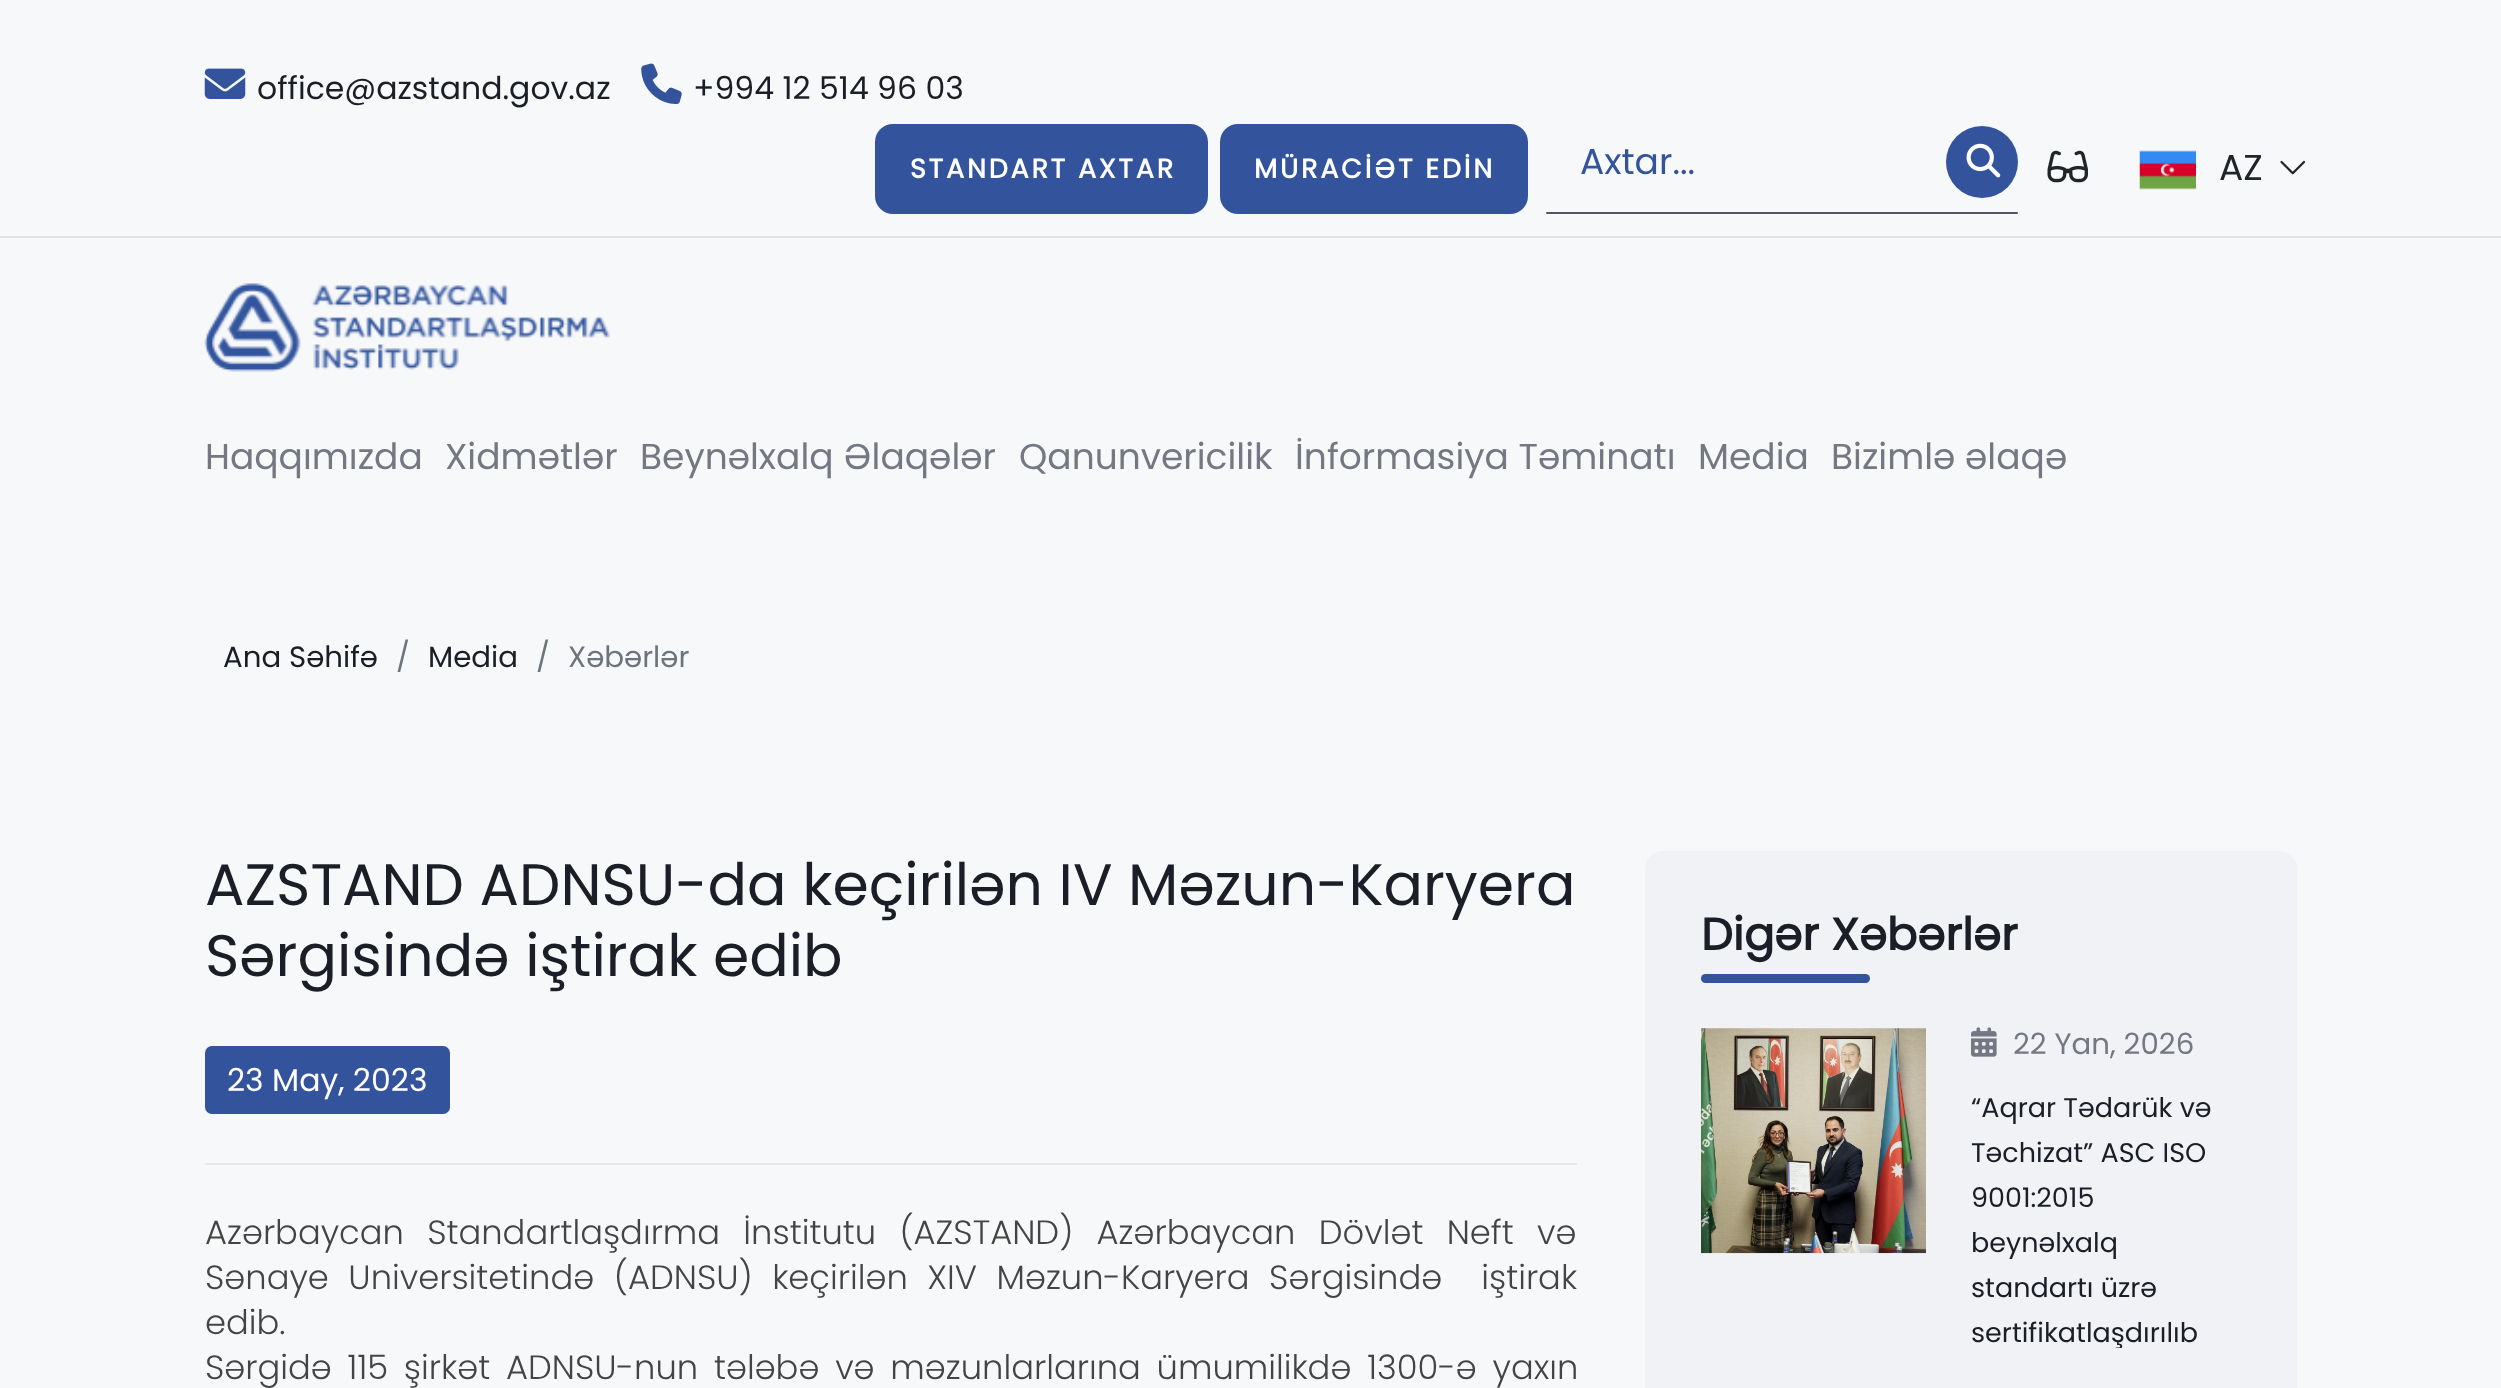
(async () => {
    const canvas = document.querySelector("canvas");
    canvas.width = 2501;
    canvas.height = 1388;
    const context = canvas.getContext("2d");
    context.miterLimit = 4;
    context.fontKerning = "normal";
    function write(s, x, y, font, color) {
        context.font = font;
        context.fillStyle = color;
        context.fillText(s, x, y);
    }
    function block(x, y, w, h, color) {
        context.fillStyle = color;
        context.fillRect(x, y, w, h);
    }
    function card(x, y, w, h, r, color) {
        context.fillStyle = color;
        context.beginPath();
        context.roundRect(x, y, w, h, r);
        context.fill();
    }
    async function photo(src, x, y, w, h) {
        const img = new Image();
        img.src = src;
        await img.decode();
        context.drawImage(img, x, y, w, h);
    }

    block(0, 0, 2501, 1388, "rgb(247, 248, 249)");
    block(0, 236, 2501, 2, "rgb(224, 226, 233)");
    await photo("media/1.png", 204, 68, 42, 31);
    write("office@azstand.gov.az", 257, 99, "31.5px Poppins", "rgb(28, 30, 39)");
    await photo("media/2.png", 641, 63, 41, 42);
    write("+994 12 514 96 03", 693, 99, "31.5px Poppins", "rgb(28, 30, 39)");
    card(875, 124, 333, 90, 18, "rgb(51, 83, 157)");
    context.letterSpacing = "2.75px";
    write("STANDART AXTAR", 910, 178, "bold 27px Poppins", "rgb(255, 255, 255)");
    card(1220, 124, 308, 90, 18, "rgb(51, 83, 157)");
    write("MÜRACİƏT EDİN", 1254, 178, "bold 27px Poppins", "rgb(255, 255, 255)");
    context.letterSpacing = "0px";
    write("Axtar...", 1580, 174, "36px Poppins", "rgb(51, 83, 157)");
    context.beginPath();
    context.arc(1982, 162, 36, 0, Math.PI * 2);
    context.fill();
    await photo("media/3.png", 1966, 143, 35, 35);
    card(1546, 212, 472, 2, 1, "rgb(84, 85, 97)");
    await photo("media/4.png", 2047, 150, 41, 33);
    await photo("media/5.png", 2139, 150, 57, 40);
    write("AZ", 2219, 180, "36px Poppins", "rgb(33, 37, 41)");
    await photo("media/6.png", 2280, 160, 26, 15);
    await photo("media/7.png", 204, 283, 406, 89);
    write("Haqqımızda", 205, 469, "36px Poppins", "rgb(117, 119, 131)");
    write("Xidmətlər", 445, 469, "36px Poppins", "rgb(117, 119, 131)");
    write("Beynəlxalq Əlaqələr", 640, 469, "36px Poppins", "rgb(117, 119, 131)");
    write("Qanunvericilik", 1019, 469, "36px Poppins", "rgb(117, 119, 131)");
    write("İnformasiya Təminatı", 1295, 469, "36px Poppins", "rgb(117, 119, 131)");
    write("Media", 1698, 469, "36px Poppins", "rgb(117, 119, 131)");
    write("Bizimlə əlaqə", 1831, 469, "36px Poppins", "rgb(117, 119, 131)");
    write("Ana Səhifə", 223, 667, "29.25px Poppins", "rgb(28, 30, 39)");
    write("/", 396, 667, "29.25px Poppins", "rgb(108, 117, 125)");
    write("Media", 428, 667, "29.25px Poppins", "rgb(28, 30, 39)");
    write("/", 536, 667, "29.25px Poppins", "rgb(108, 117, 125)");
    write("Xəbərlər", 568, 667, "29.25px Poppins", "rgb(108, 117, 125)");
    write("AZSTAND ADNSU-da keçirilən IV Məzun-Karyera", 205, 905, "58.5px Poppins", "rgb(28, 30, 39)");
    write("Sərgisində iştirak edib", 205, 976, "58.5px Poppins", "rgb(28, 30, 39)");
    block(205, 1163, 1372, 2, "rgb(232, 232, 232)");
    card(205, 1046, 245, 68, 7, "rgb(51, 83, 157)");
    write("23 May, 2023", 227, 1091, "31.5px Poppins", "rgb(255, 255, 255)");
    context.wordSpacing = "14px";
    write("Azərbaycan Standartlaşdırma İnstitutu (AZSTAND) Azərbaycan Dövlət Neft və", 205, 1244, "300 33.75px Poppins", "rgb(68, 68, 68)");
    context.wordSpacing = "10.25px";
    write("Sənaye Universitetində (ADNSU) keçirilən XIV Məzun-Karyera Sərgisində  iştirak", 205, 1289, "300 33.75px Poppins", "rgb(68, 68, 68)");
    context.wordSpacing = "0px";
    write("edib.", 205, 1334, "300 33.75px Poppins", "rgb(68, 68, 68)");
    context.wordSpacing = "6.5px";
    write("Sərgidə 115 şirkət ADNSU-nun tələbə və məzunlarlarına ümumilikdə 1300-ə yaxın", 205, 1379, "300 33.75px Poppins", "rgb(68, 68, 68)");
    card(1645, 851, 652, 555, 18, "rgb(241, 242, 246)");
    context.wordSpacing = "0px";
    write("Digər Xəbərlər", 1701, 950, "bold 45px Poppins", "rgb(28, 30, 39)");
    card(1701, 974, 169, 9, 4.5, "rgb(51, 83, 157)");
    await photo("media/8.png", 1701, 1028, 225, 226);
    await photo("media/9.png", 1971, 1027, 26, 30);
    write("22 Yan, 2026", 2013, 1054, "29.25px Poppins", "rgb(117, 119, 131)");
    write("“Aqrar Tədarük və", 1971, 1117, "27px Poppins", "rgb(28, 30, 39)");
    write("Təchizat” ASC ISO", 1971, 1162, "27px Poppins", "rgb(28, 30, 39)");
    write("9001:2015", 1971, 1207, "27px Poppins", "rgb(28, 30, 39)");
    write("beynəlxalq", 1971, 1252, "27px Poppins", "rgb(28, 30, 39)");
    write("standartı üzrə", 1971, 1297, "27px Poppins", "rgb(28, 30, 39)");
    context.save();
    context.beginPath();
    context.rect(1971, 1006, 270, 342);
    context.clip();
    write("sertifikatlaşdırılıb", 1971, 1342, "27px Poppins", "rgb(28, 30, 39)");
    context.restore();
})();
